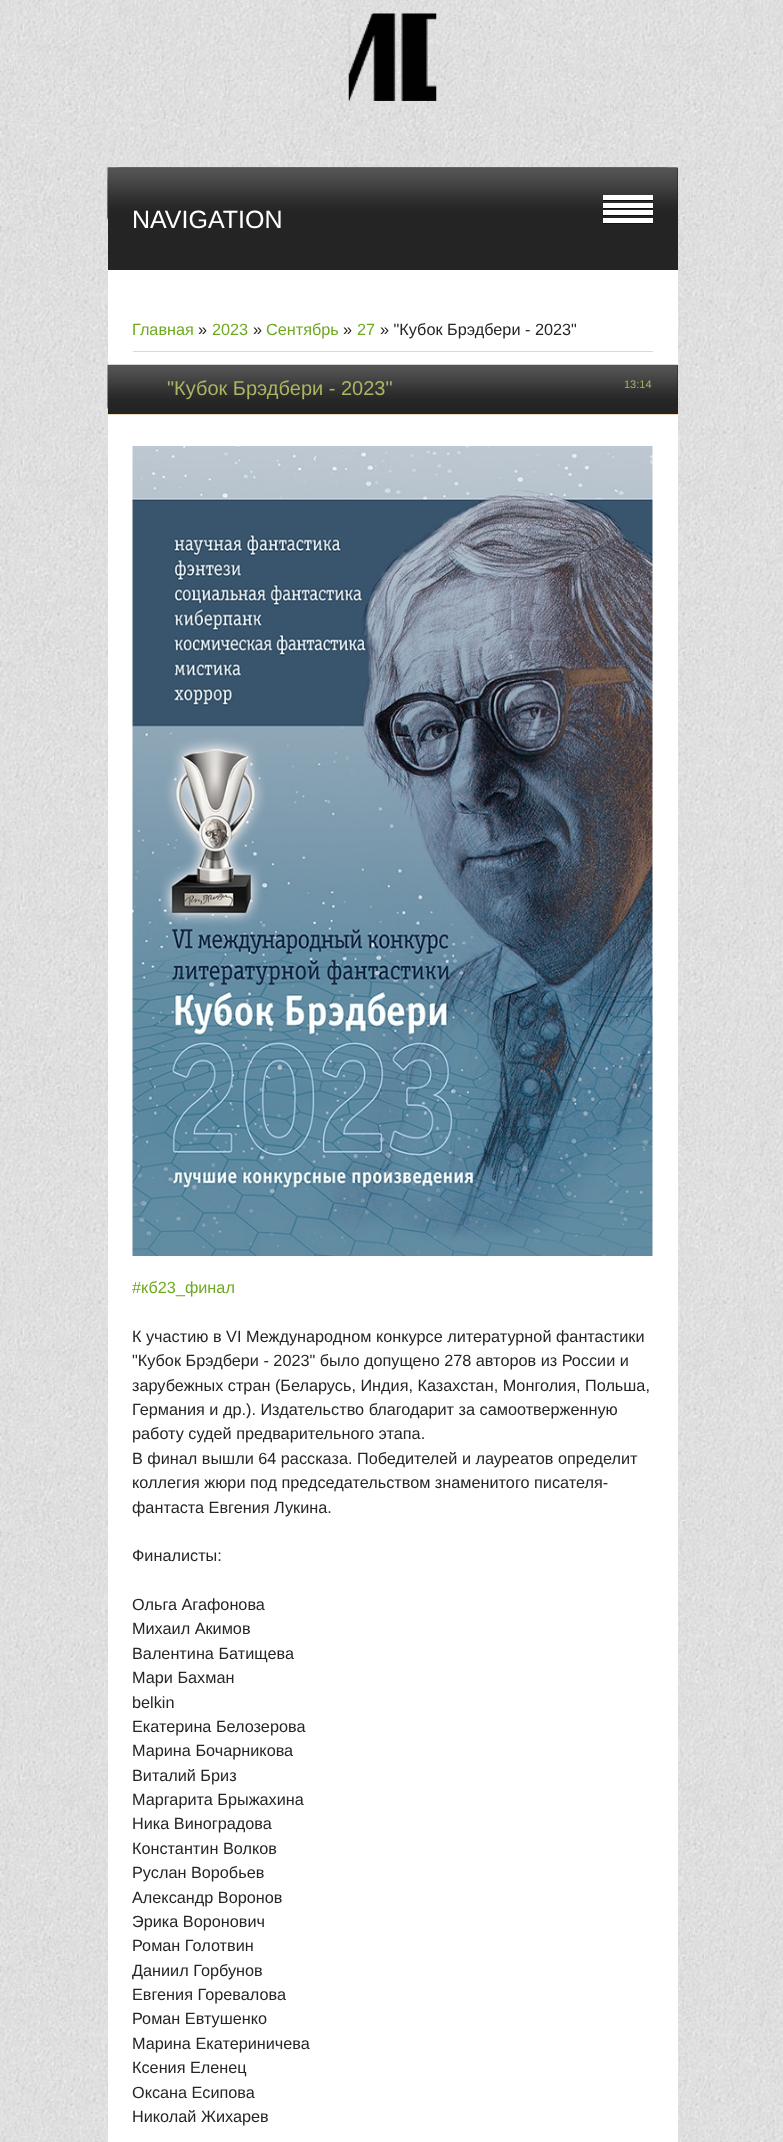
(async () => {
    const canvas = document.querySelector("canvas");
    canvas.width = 783;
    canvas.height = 2142;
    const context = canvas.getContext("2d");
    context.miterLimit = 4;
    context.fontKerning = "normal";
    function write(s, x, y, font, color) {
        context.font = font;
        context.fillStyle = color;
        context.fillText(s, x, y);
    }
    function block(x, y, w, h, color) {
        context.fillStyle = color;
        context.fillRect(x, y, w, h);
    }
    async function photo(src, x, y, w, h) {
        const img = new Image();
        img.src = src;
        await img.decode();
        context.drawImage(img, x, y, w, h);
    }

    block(0, 0, 783, 2142, "rgb(255, 255, 255)");
    await photo("media/1.png", 0, 0, 783, 2142);
    await photo("media/2.png", 348, 13, 89, 88);
    await photo("media/3.png", 107, 167, 562, 52);
    block(108, 168, 570, 102, "rgb(36, 36, 36)");
    await photo("media/4.png", 107, 167, 571, 52);
    write("NAVIGATION", 132, 228, "25px Liberation Sans", "rgb(255, 255, 255)");
    context.fillStyle = "rgb(17, 17, 17)";
    context.filter = "blur(0.5px)";
    context.beginPath();
    context.rect(603, 196, 50, 5);
    context.fill();
    context.filter = "none";
    block(603, 195, 50, 5, "rgb(255, 255, 255)");
    context.fillStyle = "rgb(17, 17, 17)";
    context.filter = "blur(0.5px)";
    context.beginPath();
    context.rect(603, 204, 50, 5);
    context.fill();
    context.filter = "none";
    block(603, 203, 50, 5, "rgb(255, 255, 255)");
    context.fillStyle = "rgb(17, 17, 17)";
    context.filter = "blur(0.5px)";
    context.beginPath();
    context.rect(603, 211, 50, 5);
    context.fill();
    context.filter = "none";
    block(603, 210, 50, 5, "rgb(255, 255, 255)");
    context.fillStyle = "rgb(17, 17, 17)";
    context.filter = "blur(0.5px)";
    context.beginPath();
    context.rect(603, 219, 50, 5);
    context.fill();
    context.filter = "none";
    block(603, 218, 50, 5, "rgb(255, 255, 255)");
    block(108, 270, 570, 1872, "rgb(255, 255, 255)");
    write("Главная", 132, 335, "16.25px Liberation Sans", "rgb(110, 169, 32)");
    write("»", 198, 335, "16.25px Liberation Sans", "rgb(37, 37, 37)");
    write("2023", 212, 335, "16.25px Liberation Sans", "rgb(110, 169, 32)");
    write("»", 253, 335, "16.25px Liberation Sans", "rgb(37, 37, 37)");
    write("Сентябрь", 266, 335, "16.25px Liberation Sans", "rgb(110, 169, 32)");
    write("»", 343, 335, "16.25px Liberation Sans", "rgb(37, 37, 37)");
    write("27", 357, 335, "16.25px Liberation Sans", "rgb(110, 169, 32)");
    write("» \"Кубок Брэдбери - 2023\"", 380, 335, "16.25px Liberation Sans", "rgb(37, 37, 37)");
    block(133, 351, 520, 1, "rgb(218, 218, 218)");
    block(108, 365, 570, 49, "rgb(36, 36, 36)");
    await photo("media/5.png", 107, 364, 571, 45);
    block(108, 414, 570, 1, "rgb(237, 218, 190)");
    write("\"Кубок Брэдбери - 2023\"", 167, 395, "20px Liberation Sans", "rgb(172, 180, 97)");
    write("13:14", 624, 388, "11px Liberation Sans", "rgb(172, 180, 97)");
    await photo("media/6.png", 132, 446, 521, 810);
    write("#кб23_финал", 132, 1293, "16.25px Liberation Sans", "rgb(110, 169, 32)");
    write("К участию в VI Международном конкурсе литературной фантастики", 132, 1342, "16.25px Liberation Sans", "rgb(37, 37, 37)");
    write("\"Кубок Брэдбери - 2023\" было допущено 278 авторов из России и", 132, 1366, "16.25px Liberation Sans", "rgb(37, 37, 37)");
    write("зарубежных стран (Беларусь, Индия, Казахстан, Монголия, Польша,", 132, 1391, "16.25px Liberation Sans", "rgb(37, 37, 37)");
    write("Германия и др.). Издательство благодарит за самоотверженную", 132, 1415, "16.25px Liberation Sans", "rgb(37, 37, 37)");
    write("работу судей предварительного этапа.", 132, 1439, "16.25px Liberation Sans", "rgb(37, 37, 37)");
    write("В финал вышли 64 рассказа. Победителей и лауреатов определит", 132, 1464, "16.25px Liberation Sans", "rgb(37, 37, 37)");
    write("коллегия жюри под председательством знаменитого писателя-", 132, 1488, "16.25px Liberation Sans", "rgb(37, 37, 37)");
    write("фантаста Евгения Лукина.", 132, 1513, "16.25px Liberation Sans", "rgb(37, 37, 37)");
    write("Финалисты:", 132, 1561, "16.25px Liberation Sans", "rgb(37, 37, 37)");
    write("Ольга Агафонова", 132, 1610, "16.25px Liberation Sans", "rgb(37, 37, 37)");
    write("Михаил Акимов", 132, 1634, "16.25px Liberation Sans", "rgb(37, 37, 37)");
    write("Валентина Батищева", 132, 1659, "16.25px Liberation Sans", "rgb(37, 37, 37)");
    write("Мари Бахман", 132, 1683, "16.25px Liberation Sans", "rgb(37, 37, 37)");
    write("belkin", 132, 1708, "16.25px Liberation Sans", "rgb(37, 37, 37)");
    write("Екатерина Белозерова", 132, 1732, "16.25px Liberation Sans", "rgb(37, 37, 37)");
    write("Марина Бочарникова", 132, 1756, "16.25px Liberation Sans", "rgb(37, 37, 37)");
    write("Виталий Бриз", 132, 1781, "16.25px Liberation Sans", "rgb(37, 37, 37)");
    write("Маргарита Брыжахина", 132, 1805, "16.25px Liberation Sans", "rgb(37, 37, 37)");
    write("Ника Виноградова", 132, 1829, "16.25px Liberation Sans", "rgb(37, 37, 37)");
    write("Константин Волков", 132, 1854, "16.25px Liberation Sans", "rgb(37, 37, 37)");
    write("Руслан Воробьев", 132, 1878, "16.25px Liberation Sans", "rgb(37, 37, 37)");
    write("Александр Воронов", 132, 1903, "16.25px Liberation Sans", "rgb(37, 37, 37)");
    write("Эрика Воронович", 132, 1927, "16.25px Liberation Sans", "rgb(37, 37, 37)");
    write("Роман Голотвин", 132, 1951, "16.25px Liberation Sans", "rgb(37, 37, 37)");
    write("Даниил Горбунов", 132, 1976, "16.25px Liberation Sans", "rgb(37, 37, 37)");
    write("Евгения Горевалова", 132, 2000, "16.25px Liberation Sans", "rgb(37, 37, 37)");
    write("Роман Евтушенко", 132, 2024, "16.25px Liberation Sans", "rgb(37, 37, 37)");
    write("Марина Екатериничева", 132, 2049, "16.25px Liberation Sans", "rgb(37, 37, 37)");
    write("Ксения Еленец", 132, 2073, "16.25px Liberation Sans", "rgb(37, 37, 37)");
    write("Оксана Есипова", 132, 2098, "16.25px Liberation Sans", "rgb(37, 37, 37)");
    write("Николай Жихарев", 132, 2122, "16.25px Liberation Sans", "rgb(37, 37, 37)");
})();
